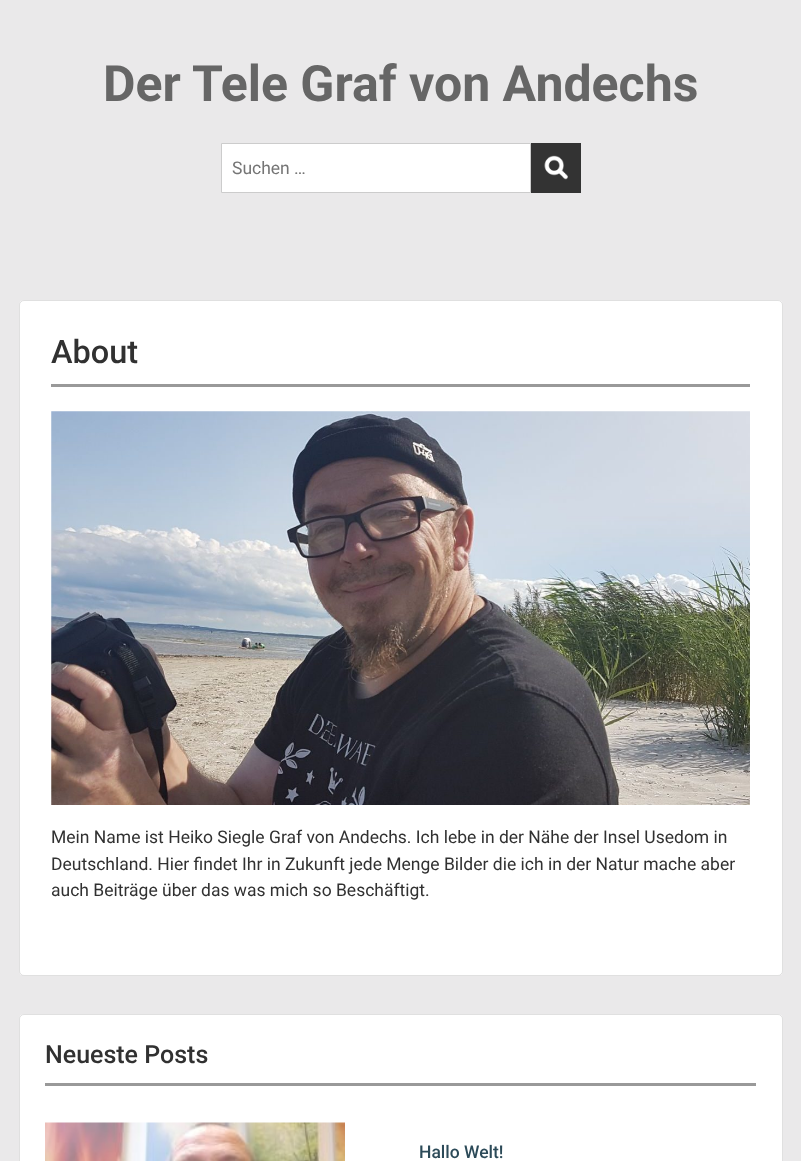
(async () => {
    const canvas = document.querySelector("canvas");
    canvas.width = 801;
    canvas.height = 1161;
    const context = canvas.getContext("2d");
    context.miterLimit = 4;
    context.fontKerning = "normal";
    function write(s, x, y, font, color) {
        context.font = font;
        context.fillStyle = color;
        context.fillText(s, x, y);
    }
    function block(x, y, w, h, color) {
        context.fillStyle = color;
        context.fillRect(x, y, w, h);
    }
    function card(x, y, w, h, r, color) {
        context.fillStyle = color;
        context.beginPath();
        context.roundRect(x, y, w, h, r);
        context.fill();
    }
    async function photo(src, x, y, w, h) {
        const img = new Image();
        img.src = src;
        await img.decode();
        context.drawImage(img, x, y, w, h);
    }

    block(0, 0, 801, 1161, "rgb(234, 233, 234)");
    write("Der Tele Graf von Andechs", 103, 101, "bold 50px Roboto", "rgb(102, 102, 102)");
    context.fillStyle = "rgb(255, 255, 255)";
    context.beginPath();
    context.rect(221.5, 143.5, 309, 49);
    context.fill();
    context.strokeStyle = "rgb(204, 204, 204)";
    context.stroke();
    write("Suchen …", 232, 174, "17.5px Roboto", "rgb(117, 117, 117)");
    block(531, 143, 50, 50, "rgb(51, 51, 51)");
    await photo("media/1.png", 544, 155, 24, 25);
    card(19, 300, 764, 676, 5, "rgb(255, 255, 255)");
    context.beginPath();
    context.roundRect(19.5, 300.5, 763, 675, 4.5);
    context.strokeStyle = "rgba(0, 0, 0, 0.12)";
    context.stroke();
    block(51, 384, 699, 3, "rgb(153, 153, 153)");
    write("About", 51, 363, "500 32.5px Roboto", "rgb(49, 49, 49)");
    await photo("media/2.png", 51, 411, 699, 394);
    write("Mein Name ist Heiko Siegle Graf von Andechs. Ich lebe in der Nähe der Insel Usedom in", 51, 843, "17.5px Roboto", "rgb(49, 49, 49)");
    write("Deutschland. Hier findet Ihr in Zukunft jede Menge Bilder die ich in der Natur mache aber", 51, 870, "17.5px Roboto", "rgb(49, 49, 49)");
    write("auch Beiträge über das was mich so Beschäftigt.", 51, 896, "17.5px Roboto", "rgb(49, 49, 49)");
    card(19, 1014, 764, 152, 5, "rgb(255, 255, 255)");
    context.beginPath();
    context.roundRect(19.5, 1014.5, 763, 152, 4.5);
    context.stroke();
    block(45, 1083, 711, 3, "rgb(153, 153, 153)");
    write("Neueste Posts", 45, 1063, "500 25px Roboto", "rgb(49, 49, 49)");
    await photo("media/3.png", 45, 1122, 300, 39);
    write("Hallo Welt!", 419, 1158, "500 17.5px Roboto", "rgb(44, 74, 88)");
})();
